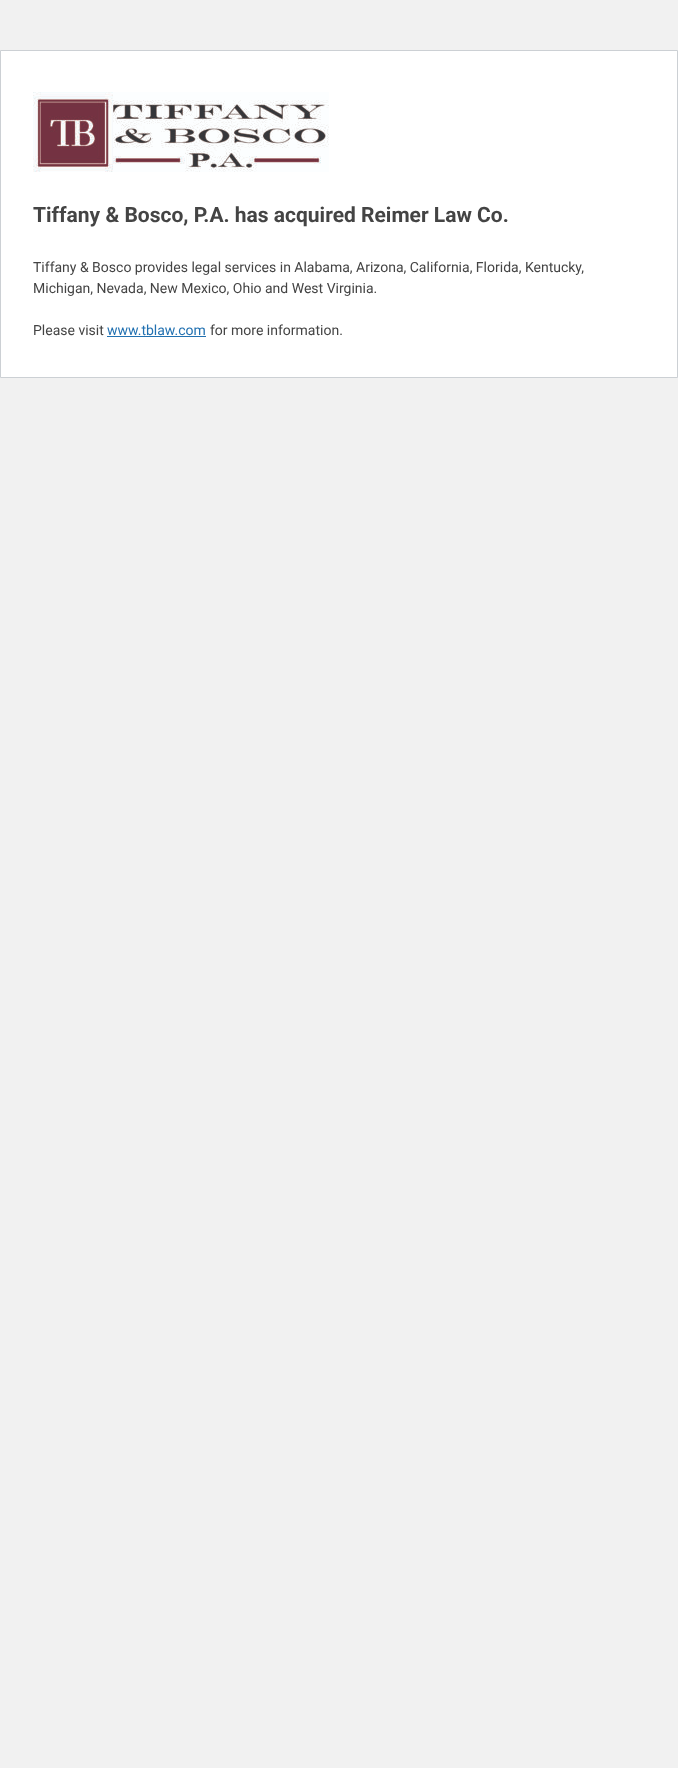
(async () => {
    const canvas = document.querySelector("canvas");
    canvas.width = 678;
    canvas.height = 1768;
    const context = canvas.getContext("2d");
    context.miterLimit = 4;
    context.fontKerning = "normal";
    function write(s, x, y, font, color) {
        context.font = font;
        context.fillStyle = color;
        context.fillText(s, x, y);
    }
    function block(x, y, w, h, color) {
        context.fillStyle = color;
        context.fillRect(x, y, w, h);
    }
    async function photo(src, x, y, w, h) {
        const img = new Image();
        img.src = src;
        await img.decode();
        context.drawImage(img, x, y, w, h);
    }

    block(0, 0, 678, 1768, "rgb(241, 241, 241)");
    context.fillStyle = "rgb(255, 255, 255)";
    context.beginPath();
    context.rect(0.5, 50.5, 677, 327);
    context.fill();
    context.strokeStyle = "rgb(204, 208, 212)";
    context.stroke();
    await photo("media/1.png", 33, 92, 296, 80);
    write("Tiffany & Bosco, P.A. has acquired Reimer Law Co.", 33, 222, "bold 21px Roboto", "rgb(68, 68, 68)");
    write("Tiffany & Bosco provides legal services in Alabama, Arizona, California, Florida, Kentucky,", 33, 272, "14px Roboto", "rgb(68, 68, 68)");
    write("Michigan, Nevada, New Mexico, Ohio and West Virginia.", 33, 293, "14px Roboto", "rgb(68, 68, 68)");
    write("Please visit", 33, 335, "14px Roboto", "rgb(68, 68, 68)");
    write("www.tblaw.com", 107, 335, "14px Roboto", "rgb(34, 113, 177)");
    block(107, 336, 99, 1, "rgb(34, 113, 177)");
    write("for more information.", 210, 335, "14px Roboto", "rgb(68, 68, 68)");
})();
